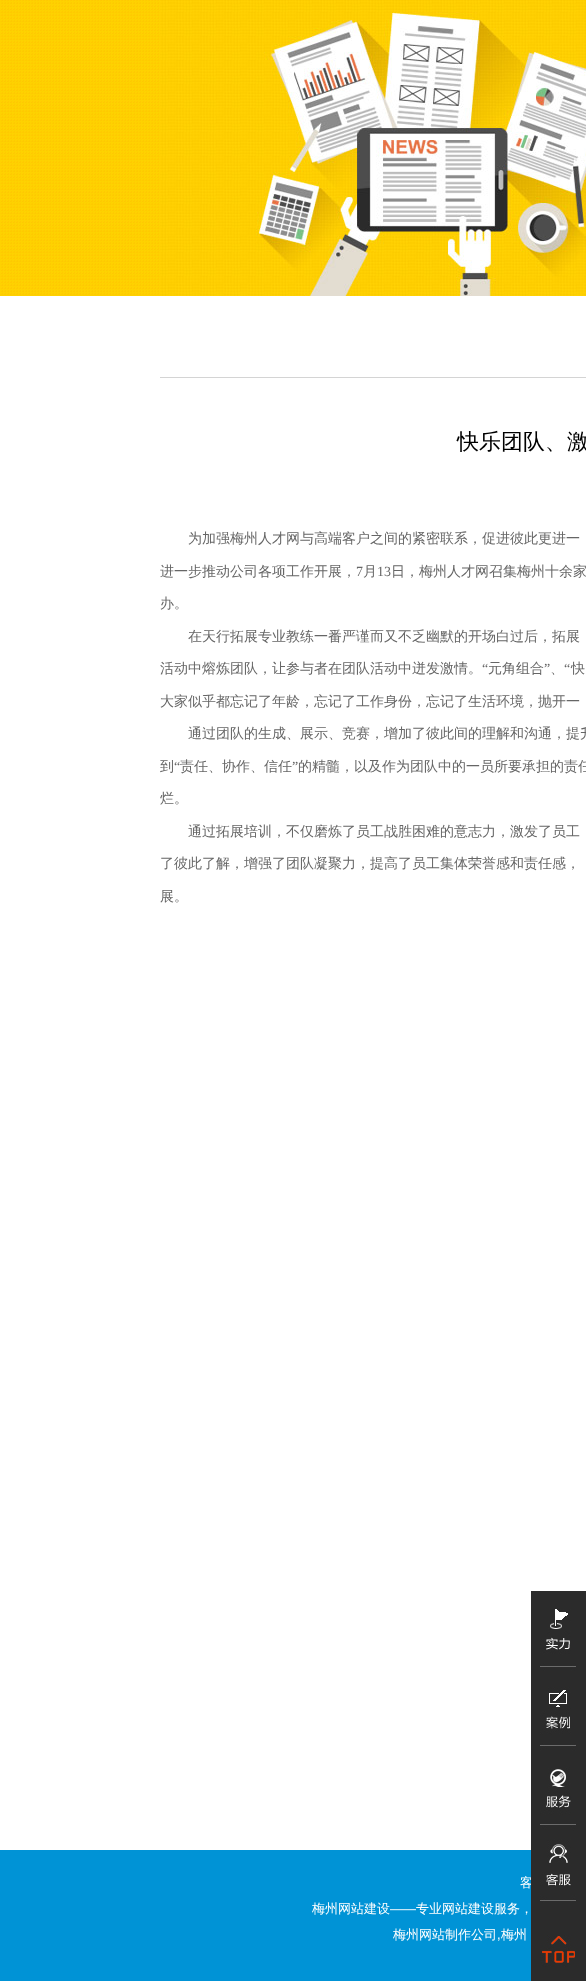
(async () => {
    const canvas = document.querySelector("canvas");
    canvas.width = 586;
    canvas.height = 1981;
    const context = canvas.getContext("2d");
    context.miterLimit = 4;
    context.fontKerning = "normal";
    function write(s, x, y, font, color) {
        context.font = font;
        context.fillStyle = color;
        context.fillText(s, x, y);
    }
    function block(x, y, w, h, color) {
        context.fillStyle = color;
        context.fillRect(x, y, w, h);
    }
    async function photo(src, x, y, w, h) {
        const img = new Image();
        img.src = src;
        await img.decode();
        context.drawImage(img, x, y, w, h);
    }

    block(0, 0, 586, 1981, "rgb(255, 255, 255)");
    await photo("media/1.png", 0, 0, 160, 296);
    await photo("media/2.png", 160, 0, 426, 296);
    block(160, 377, 426, 1, "rgb(212, 212, 212)");
    write("快乐团队、激", 457, 449, "500 22px WenQuanYi Zen Hei", "rgb(0, 0, 0)");
    write("为加强梅州人才网与高端客户之间的紧密联系，促进彼此更进一", 188, 543, "500 14px WenQuanYi Zen Hei", "rgb(102, 102, 102)");
    write("进一步推动公司各项工作开展，", 160, 576, "500 14px WenQuanYi Zen Hei", "rgb(102, 102, 102)");
    write("7", 356, 576, "14px Liberation Serif", "rgb(102, 102, 102)");
    write("月", 363, 576, "500 14px WenQuanYi Zen Hei", "rgb(102, 102, 102)");
    write("13", 377, 576, "14px Liberation Serif", "rgb(102, 102, 102)");
    write("日，梅州人才网召集梅州十余家", 391, 576, "500 14px WenQuanYi Zen Hei", "rgb(102, 102, 102)");
    write("办。", 160, 608, "500 14px WenQuanYi Zen Hei", "rgb(102, 102, 102)");
    write("在天行拓展专业教练一番严谨而又不乏幽默的开场白过后，拓展", 188, 641, "500 14px WenQuanYi Zen Hei", "rgb(102, 102, 102)");
    write("活动中熔炼团队，让参与者在团队活动中迸发激情。", 160, 673, "500 14px WenQuanYi Zen Hei", "rgb(102, 102, 102)");
    write("“", 482, 673, "14px Liberation Serif", "rgb(102, 102, 102)");
    write("元角组合", 488, 673, "500 14px WenQuanYi Zen Hei", "rgb(102, 102, 102)");
    write("”", 544, 673, "14px Liberation Serif", "rgb(102, 102, 102)");
    write("“", 564, 673, "14px Liberation Serif", "rgb(102, 102, 102)");
    write("快", 571, 673, "500 14px WenQuanYi Zen Hei", "rgb(102, 102, 102)");
    write("、", 550, 673, "500 14px WenQuanYi Zen Hei", "rgb(102, 102, 102)");
    write("大家似乎都忘记了年龄，忘记了工作身份，忘记了生活环境，抛开一", 160, 706, "500 14px WenQuanYi Zen Hei", "rgb(102, 102, 102)");
    write("通过团队的生成、展示、竞赛，增加了彼此间的理解和沟通，提升", 188, 738, "500 14px WenQuanYi Zen Hei", "rgb(102, 102, 102)");
    write("到", 160, 771, "500 14px WenQuanYi Zen Hei", "rgb(102, 102, 102)");
    write("“", 174, 771, "14px Liberation Serif", "rgb(102, 102, 102)");
    write("责任、协作、信任", 180, 771, "500 14px WenQuanYi Zen Hei", "rgb(102, 102, 102)");
    write("”", 292, 771, "14px Liberation Serif", "rgb(102, 102, 102)");
    write("的精髓，以及作为团队中的一员所要承担的责任", 298, 771, "500 14px WenQuanYi Zen Hei", "rgb(102, 102, 102)");
    write("烂。", 160, 803, "500 14px WenQuanYi Zen Hei", "rgb(102, 102, 102)");
    write("通过拓展培训，不仅磨炼了员工战胜困难的意志力，激发了员工", 188, 836, "500 14px WenQuanYi Zen Hei", "rgb(102, 102, 102)");
    write("了彼此了解，增强了团队凝聚力，提高了员工集体荣誉感和责任感，", 160, 868, "500 14px WenQuanYi Zen Hei", "rgb(102, 102, 102)");
    write("展。", 160, 901, "500 14px WenQuanYi Zen Hei", "rgb(102, 102, 102)");
    block(0, 1850, 531, 131, "rgb(0, 147, 214)");
    write("客", 520, 1887, "500 13px WenQuanYi Zen Hei", "rgb(255, 255, 255)");
    write("梅州网站建设", 312, 1913, "500 13px WenQuanYi Zen Hei", "rgb(255, 255, 255)");
    write("——", 390, 1913, "13px Liberation Sans", "rgb(255, 255, 255)");
    write("专业网站建设服务，", 416, 1913, "500 13px WenQuanYi Zen Hei", "rgb(255, 255, 255)");
    write("梅州网站制作公司 梅州", 393, 1939, "500 13px WenQuanYi Zen Hei", "rgb(255, 255, 255)");
    write(",", 497, 1939, "13px Liberation Sans", "rgb(255, 255, 255)");
    block(531, 1591, 55, 390, "rgb(43, 43, 43)");
    await photo("media/3.png", 540, 1609, 36, 358);
})();
